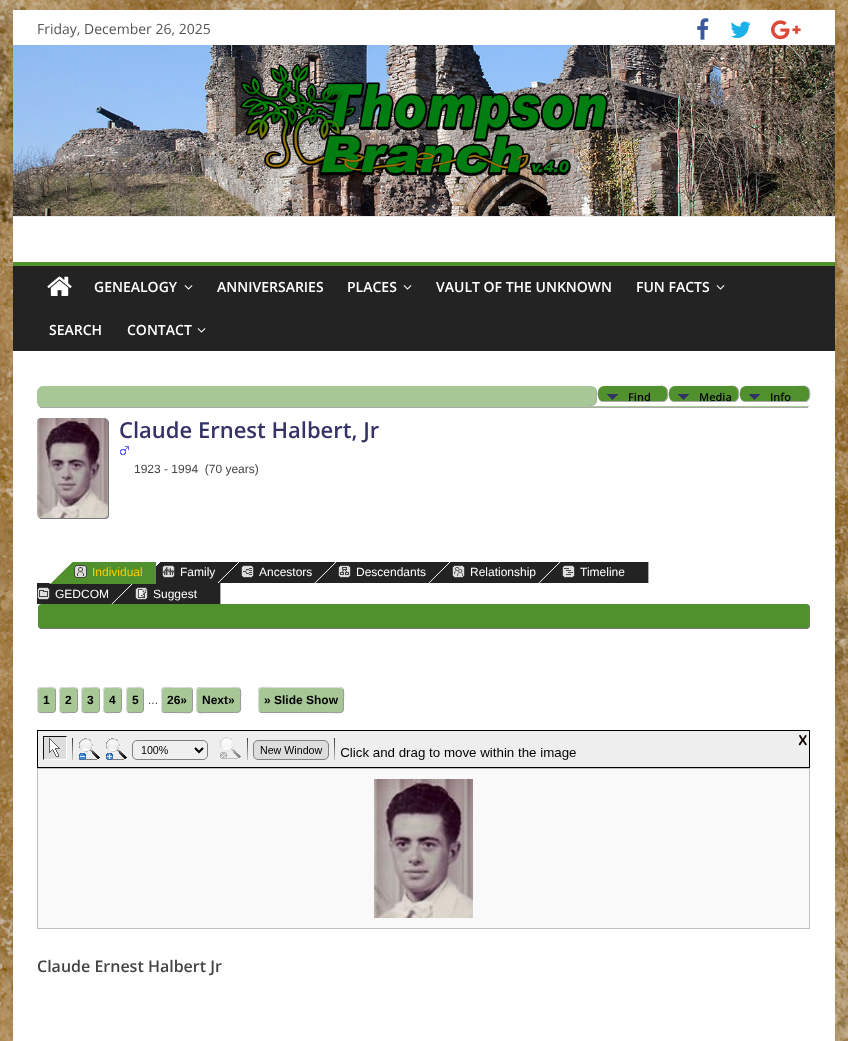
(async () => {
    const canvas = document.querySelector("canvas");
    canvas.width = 848;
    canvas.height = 1041;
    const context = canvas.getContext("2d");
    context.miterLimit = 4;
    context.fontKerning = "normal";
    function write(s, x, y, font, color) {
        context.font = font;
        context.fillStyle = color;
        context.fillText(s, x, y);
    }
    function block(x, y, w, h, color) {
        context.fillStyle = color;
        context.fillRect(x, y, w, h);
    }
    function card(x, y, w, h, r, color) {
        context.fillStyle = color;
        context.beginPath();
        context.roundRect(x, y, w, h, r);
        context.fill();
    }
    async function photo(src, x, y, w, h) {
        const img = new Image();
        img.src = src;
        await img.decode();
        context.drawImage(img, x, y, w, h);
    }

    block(0, 0, 848, 1041, "rgb(255, 255, 255)");
    await photo("media/1.png", 0, 0, 848, 1041);
    block(13, 10, 822, 252, "rgb(255, 255, 255)");
    write("Friday, December 26, 2025", 37, 34, "14px Open Sans", "rgb(85, 85, 85)");
    await photo("media/2.png", 697, 18, 12, 22);
    await photo("media/3.png", 730, 21, 21, 17);
    await photo("media/4.png", 771, 20, 30, 20);
    await photo("media/5.png", 13, 45, 822, 171);
    block(13, 216, 822, 1, "rgb(234, 234, 234)");
    block(13, 266, 822, 85, "rgb(35, 35, 35)");
    block(13, 262, 822, 4, "rgb(80, 145, 45)");
    await photo("media/6.png", 47, 276, 25, 20);
    write("GENEALOGY", 94, 292, "600 14px Open Sans", "rgb(255, 255, 255)");
    await photo("media/7.png", 184, 285, 9, 5);
    write("ANNIVERSARIES", 217, 292, "600 14px Open Sans", "rgb(255, 255, 255)");
    write("PLACES", 347, 292, "600 14px Open Sans", "rgb(255, 255, 255)");
    await photo("media/7.png", 403, 285, 9, 5);
    write("VAULT OF THE UNKNOWN", 436, 292, "600 14px Open Sans", "rgb(255, 255, 255)");
    write("FUN FACTS", 636, 292, "600 14px Open Sans", "rgb(255, 255, 255)");
    await photo("media/7.png", 716, 285, 9, 5);
    write("SEARCH", 49, 335, "600 14px Open Sans", "rgb(255, 255, 255)");
    write("CONTACT", 127, 335, "600 14px Open Sans", "rgb(255, 255, 255)");
    await photo("media/7.png", 197, 328, 9, 5);
    block(13, 351, 822, 690, "rgb(255, 255, 255)");
    card(37, 386, 774, 22, 6, "rgb(167, 200, 150)");
    block(40, 407, 768, 1, "rgb(170, 170, 170)");
    block(591, 386, 220, 20, "rgb(255, 255, 255)");
    context.fillStyle = "rgb(167, 200, 150)";
    context.beginPath();
    context.roundRect(589, 386, 8, 20, [0, 6, 6, 0]);
    context.fill();
    context.fillStyle = "rgb(170, 170, 170)";
    context.beginPath();
    context.moveTo(589, 386);
    context.bezierCurveTo(596.5, 386, 597, 389.5, 597, 396);
    context.bezierCurveTo(597, 402.5, 596.5, 406, 589, 406);
    context.closePath();
    context.moveTo(589, 386);
    context.bezierCurveTo(596.5, 386, 596, 390, 596, 396);
    context.bezierCurveTo(596, 402, 596, 405, 589, 405);
    context.closePath();
    context.fill("evenodd");
    card(598, 386, 70, 16, 6, "rgb(80, 145, 45)");
    await photo("media/8.png", 607, 394, 11, 6);
    context.fillStyle = "rgb(170, 170, 170)";
    context.beginPath();
    context.moveTo(604, 386);
    context.lineTo(652, 386);
    context.bezierCurveTo(653, 386, 661, 385, 664, 386);
    context.bezierCurveTo(670, 389, 670, 401, 663, 402);
    context.lineTo(604, 402);
    context.bezierCurveTo(596, 402, 596, 386, 604, 386);
    context.closePath();
    context.moveTo(604, 386);
    context.lineTo(652, 386);
    context.bezierCurveTo(661, 386, 667, 384, 667, 394);
    context.bezierCurveTo(667, 397, 667, 399, 664, 401);
    context.lineTo(652, 401);
    context.lineTo(602, 401);
    context.bezierCurveTo(595, 398, 597, 386, 604, 386);
    context.closePath();
    context.fill("evenodd");
    write("Find", 628, 401, "600 11px Open Sans", "rgb(0, 0, 0)");
    card(669, 386, 70, 16, 6, "rgb(80, 145, 45)");
    await photo("media/8.png", 678, 394, 11, 6);
    context.fillStyle = "rgb(170, 170, 170)";
    context.beginPath();
    context.moveTo(675, 386);
    context.lineTo(723, 386);
    context.bezierCurveTo(724, 386, 732, 385, 735, 386);
    context.bezierCurveTo(741, 389, 741, 401, 734, 402);
    context.lineTo(675, 402);
    context.bezierCurveTo(667, 402, 667, 386, 675, 386);
    context.closePath();
    context.moveTo(675, 386);
    context.lineTo(723, 386);
    context.bezierCurveTo(732, 386, 738, 384, 738, 394);
    context.bezierCurveTo(738, 397, 738, 399, 735, 401);
    context.lineTo(723, 401);
    context.lineTo(673, 401);
    context.bezierCurveTo(666, 398, 668, 386, 675, 386);
    context.closePath();
    context.fill("evenodd");
    write("Media", 699, 401, "600 11px Open Sans", "rgb(0, 0, 0)");
    card(740, 386, 70, 16, 6, "rgb(80, 145, 45)");
    await photo("media/8.png", 749, 394, 11, 6);
    context.fillStyle = "rgb(170, 170, 170)";
    context.beginPath();
    context.moveTo(746, 386);
    context.lineTo(794, 386);
    context.bezierCurveTo(795, 386, 803, 385, 806, 386);
    context.bezierCurveTo(812, 389, 812, 401, 805, 402);
    context.lineTo(746, 402);
    context.bezierCurveTo(738, 402, 738, 386, 746, 386);
    context.closePath();
    context.moveTo(746, 386);
    context.lineTo(794, 386);
    context.bezierCurveTo(803, 386, 809, 384, 809, 394);
    context.bezierCurveTo(809, 397, 809, 399, 806, 401);
    context.lineTo(794, 401);
    context.lineTo(744, 401);
    context.bezierCurveTo(737, 398, 739, 386, 746, 386);
    context.closePath();
    context.fill("evenodd");
    write("Info", 770, 401, "600 11px Open Sans", "rgb(0, 0, 0)");
    context.fillStyle = "rgb(119, 119, 119)";
    context.filter = "blur(0.5px)";
    context.beginPath();
    context.roundRect(38, 419, 71, 100, 4);
    context.fill();
    context.filter = "none";
    await photo("media/9.png", 37, 418, 71, 100);
    write("Claude Ernest Halbert, Jr", 119, 438, "600 22px Open Sans", "rgb(51, 51, 102)");
    await photo("media/10.png", 120, 446, 9, 9);
    write("1923 - 1994  (70 years)", 134, 473, "12px Liberation Sans", "rgb(68, 68, 68)");
    block(37, 583, 95, 21, "rgb(35, 35, 35)");
    await photo("media/24.png", 111, 583, 109, 21);
    await photo("media/11.png", 49, 562, 106, 22);
    block(155, 562, 1, 22, "rgb(119, 119, 119)");
    await photo("media/12.png", 74, 565, 13, 13);
    write("Individual", 92, 576, "12px Liberation Sans", "rgb(255, 204, 0)");
    await photo("media/13.png", 156, 562, 82, 21);
    await photo("media/14.png", 162, 565, 13, 13);
    write("Family", 180, 576, "12px Liberation Sans", "rgb(255, 255, 255)");
    await photo("media/15.png", 217, 562, 119, 21);
    await photo("media/16.png", 241, 565, 13, 13);
    write("Ancestors", 259, 576, "12px Liberation Sans", "rgb(255, 255, 255)");
    await photo("media/17.png", 314, 562, 136, 21);
    await photo("media/18.png", 338, 565, 13, 13);
    write("Descendants", 356, 576, "12px Liberation Sans", "rgb(255, 255, 255)");
    await photo("media/19.png", 428, 562, 132, 21);
    await photo("media/20.png", 452, 565, 13, 13);
    write("Relationship", 470, 576, "12px Liberation Sans", "rgb(255, 255, 255)");
    await photo("media/21.png", 538, 562, 110, 21);
    block(648, 562, 1, 21, "rgb(170, 170, 170)");
    await photo("media/22.png", 562, 565, 13, 13);
    write("Timeline", 580, 576, "12px Liberation Sans", "rgb(255, 255, 255)");
    await photo("media/23.png", 37, 587, 13, 13);
    write("GEDCOM", 55, 598, "12px Liberation Sans", "rgb(255, 255, 255)");
    block(220, 583, 1, 21, "rgb(170, 170, 170)");
    await photo("media/25.png", 135, 587, 13, 13);
    write("Suggest", 153, 598, "12px Liberation Sans", "rgb(255, 255, 255)");
    card(38, 604, 772, 25, 4, "rgb(80, 145, 45)");
    context.fillStyle = "rgb(119, 119, 119)";
    context.beginPath();
    context.moveTo(42, 604);
    context.lineTo(806, 604);
    context.bezierCurveTo(808, 604, 810, 606, 810, 608);
    context.lineTo(810, 625);
    context.bezierCurveTo(810, 627, 808, 629, 806, 629);
    context.lineTo(42, 629);
    context.bezierCurveTo(40, 629, 38, 627, 38, 625);
    context.lineTo(38, 608);
    context.bezierCurveTo(38, 606, 40, 604, 42, 604);
    context.closePath();
    context.moveTo(42, 604);
    context.lineTo(806, 604);
    context.bezierCurveTo(808, 604, 809, 606, 809, 608);
    context.lineTo(809, 625);
    context.bezierCurveTo(809, 627, 808, 628, 806, 628);
    context.lineTo(42, 628);
    context.bezierCurveTo(40, 628, 38, 627, 38, 625);
    context.lineTo(38, 608);
    context.bezierCurveTo(38, 606, 40, 604, 42, 604);
    context.closePath();
    context.fill("evenodd");
    card(37, 687, 19, 26, 4, "rgb(167, 200, 150)");
    context.beginPath();
    context.moveTo(54.5, 688.5);
    context.bezierCurveTo(56, 690, 55.5, 692, 55.5, 694);
    context.lineTo(55.5, 706);
    context.bezierCurveTo(55.5, 708.5, 56, 712, 52.5, 712.5);
    context.lineTo(46.5, 712.5);
    context.bezierCurveTo(44.5, 712.5, 40.5, 713.5, 38.5, 711.5);
    context.strokeStyle = "rgb(153, 153, 153)";
    context.stroke();
    context.beginPath();
    context.moveTo(38.5, 711.5);
    context.bezierCurveTo(37, 710, 37.5, 708, 37.5, 706);
    context.lineTo(37.5, 694);
    context.bezierCurveTo(37.5, 691.5, 37, 688, 40.5, 687.5);
    context.lineTo(46.5, 687.5);
    context.bezierCurveTo(48.5, 687.5, 52.5, 686.5, 54.5, 688.5);
    context.strokeStyle = "rgb(221, 221, 221)";
    context.stroke();
    write("1", 43, 704, "bold 12px Liberation Sans", "rgb(0, 0, 0)");
    card(59, 687, 19, 26, 4, "rgb(167, 200, 150)");
    context.beginPath();
    context.moveTo(76.5, 688.5);
    context.bezierCurveTo(78, 690, 77.5, 692, 77.5, 694);
    context.lineTo(77.5, 706);
    context.bezierCurveTo(77.5, 708.5, 78, 712, 74.5, 712.5);
    context.lineTo(68.5, 712.5);
    context.bezierCurveTo(66.5, 712.5, 62.5, 713.5, 60.5, 711.5);
    context.strokeStyle = "rgb(153, 153, 153)";
    context.stroke();
    context.beginPath();
    context.moveTo(60.5, 711.5);
    context.bezierCurveTo(59, 710, 59.5, 708, 59.5, 706);
    context.lineTo(59.5, 694);
    context.bezierCurveTo(59.5, 691.5, 59, 688, 62.5, 687.5);
    context.lineTo(68.5, 687.5);
    context.bezierCurveTo(70.5, 687.5, 74.5, 686.5, 76.5, 688.5);
    context.strokeStyle = "rgb(221, 221, 221)";
    context.stroke();
    write("2", 65, 704, "bold 12px Liberation Sans", "rgb(0, 0, 0)");
    card(81, 687, 19, 26, 4, "rgb(167, 200, 150)");
    context.beginPath();
    context.moveTo(98.5, 688.5);
    context.bezierCurveTo(100, 690, 99.5, 692, 99.5, 694);
    context.lineTo(99.5, 706);
    context.bezierCurveTo(99.5, 708.5, 100, 712, 96.5, 712.5);
    context.lineTo(90.5, 712.5);
    context.bezierCurveTo(88.5, 712.5, 84.5, 713.5, 82.5, 711.5);
    context.strokeStyle = "rgb(153, 153, 153)";
    context.stroke();
    context.beginPath();
    context.moveTo(82.5, 711.5);
    context.bezierCurveTo(81, 710, 81.5, 708, 81.5, 706);
    context.lineTo(81.5, 694);
    context.bezierCurveTo(81.5, 691.5, 81, 688, 84.5, 687.5);
    context.lineTo(90.5, 687.5);
    context.bezierCurveTo(92.5, 687.5, 96.5, 686.5, 98.5, 688.5);
    context.strokeStyle = "rgb(221, 221, 221)";
    context.stroke();
    write("3", 87, 704, "bold 12px Liberation Sans", "rgb(0, 0, 0)");
    card(103, 687, 19, 26, 4, "rgb(167, 200, 150)");
    context.beginPath();
    context.moveTo(120.5, 688.5);
    context.bezierCurveTo(122, 690, 121.5, 692, 121.5, 694);
    context.lineTo(121.5, 706);
    context.bezierCurveTo(121.5, 708.5, 122, 712, 118.5, 712.5);
    context.lineTo(112.5, 712.5);
    context.bezierCurveTo(110.5, 712.5, 106.5, 713.5, 104.5, 711.5);
    context.strokeStyle = "rgb(153, 153, 153)";
    context.stroke();
    context.beginPath();
    context.moveTo(104.5, 711.5);
    context.bezierCurveTo(103, 710, 103.5, 708, 103.5, 706);
    context.lineTo(103.5, 694);
    context.bezierCurveTo(103.5, 691.5, 103, 688, 106.5, 687.5);
    context.lineTo(112.5, 687.5);
    context.bezierCurveTo(114.5, 687.5, 118.5, 686.5, 120.5, 688.5);
    context.strokeStyle = "rgb(221, 221, 221)";
    context.stroke();
    write("4", 109, 704, "bold 12px Liberation Sans", "rgb(0, 0, 0)");
    card(126, 687, 18, 26, 4, "rgb(167, 200, 150)");
    context.beginPath();
    context.moveTo(142.5, 688.5);
    context.bezierCurveTo(144, 690, 143.5, 692, 143.5, 694);
    context.lineTo(143.5, 706);
    context.bezierCurveTo(143.5, 708.5, 144, 712, 140.5, 712.5);
    context.lineTo(135, 712.5);
    context.bezierCurveTo(133, 712.5, 129.5, 713.5, 127.5, 711.5);
    context.strokeStyle = "rgb(153, 153, 153)";
    context.stroke();
    context.beginPath();
    context.moveTo(127.5, 711.5);
    context.bezierCurveTo(126, 710, 126.5, 708, 126.5, 706);
    context.lineTo(126.5, 694);
    context.bezierCurveTo(126.5, 691.5, 126, 688, 129.5, 687.5);
    context.lineTo(135, 687.5);
    context.bezierCurveTo(137, 687.5, 140.5, 686.5, 142.5, 688.5);
    context.strokeStyle = "rgb(221, 221, 221)";
    context.stroke();
    write("5", 132, 704, "bold 12px Liberation Sans", "rgb(0, 0, 0)");
    write("...", 148, 704, "12px Liberation Sans", "rgb(68, 68, 68)");
    card(161, 687, 32, 26, 4, "rgb(167, 200, 150)");
    context.beginPath();
    context.moveTo(191.5, 688.5);
    context.bezierCurveTo(193, 690, 192.5, 692, 192.5, 694);
    context.lineTo(192.5, 700);
    context.bezierCurveTo(192.5, 715.5, 193.5, 712.5, 177, 712.5);
    context.lineTo(169, 712.5);
    context.bezierCurveTo(167, 712.5, 164, 713, 162.5, 711.5);
    context.strokeStyle = "rgb(153, 153, 153)";
    context.stroke();
    context.beginPath();
    context.moveTo(162.5, 711.5);
    context.bezierCurveTo(161, 710, 161.5, 708, 161.5, 706);
    context.lineTo(161.5, 700);
    context.bezierCurveTo(161.5, 684.5, 160.5, 687.5, 177, 687.5);
    context.lineTo(185, 687.5);
    context.bezierCurveTo(187, 687.5, 190, 687, 191.5, 688.5);
    context.strokeStyle = "rgb(221, 221, 221)";
    context.stroke();
    write("26»", 167, 704, "bold 12px Liberation Sans", "rgb(0, 0, 0)");
    card(196, 687, 45, 26, 4, "rgb(167, 200, 150)");
    context.beginPath();
    context.moveTo(239.5, 688.5);
    context.bezierCurveTo(241.5, 690.5, 240.5, 697.5, 240.5, 700);
    context.bezierCurveTo(240.5, 712, 242.5, 712.5, 231, 712.5);
    context.lineTo(206, 712.5);
    context.bezierCurveTo(204.5, 712.5, 199.5, 713.5, 197.5, 711.5);
    context.strokeStyle = "rgb(153, 153, 153)";
    context.stroke();
    context.beginPath();
    context.moveTo(197.5, 711.5);
    context.bezierCurveTo(195.5, 709.5, 196.5, 702.5, 196.5, 700);
    context.bezierCurveTo(196.5, 688, 194.5, 687.5, 206, 687.5);
    context.lineTo(231, 687.5);
    context.bezierCurveTo(232.5, 687.5, 237.5, 686.5, 239.5, 688.5);
    context.strokeStyle = "rgb(221, 221, 221)";
    context.stroke();
    write("Next»", 202, 704, "bold 12px Liberation Sans", "rgb(0, 0, 0)");
    card(258, 687, 86, 26, 4, "rgb(167, 200, 150)");
    context.beginPath();
    context.moveTo(342.5, 688.5);
    context.bezierCurveTo(344.5, 690.5, 343.5, 697.5, 343.5, 700);
    context.bezierCurveTo(343.5, 715.5, 344.5, 712.5, 327, 712.5);
    context.lineTo(262, 712.5);
    context.lineTo(259.5, 711.5);
    context.strokeStyle = "rgb(153, 153, 153)";
    context.stroke();
    context.beginPath();
    context.moveTo(259.5, 711.5);
    context.bezierCurveTo(257.5, 709.5, 258.5, 702.5, 258.5, 700);
    context.bezierCurveTo(258.5, 684.5, 257.5, 687.5, 275, 687.5);
    context.lineTo(340, 687.5);
    context.lineTo(342.5, 688.5);
    context.strokeStyle = "rgb(221, 221, 221)";
    context.stroke();
    write("» Slide Show", 264, 704, "bold 12px Liberation Sans", "rgb(0, 0, 0)");
    await photo("media/26.png", 37, 730, 773, 199);
    write("Claude Ernest Halbert Jr", 37, 972, "600 16px Open Sans", "rgb(68, 68, 68)");
})();
